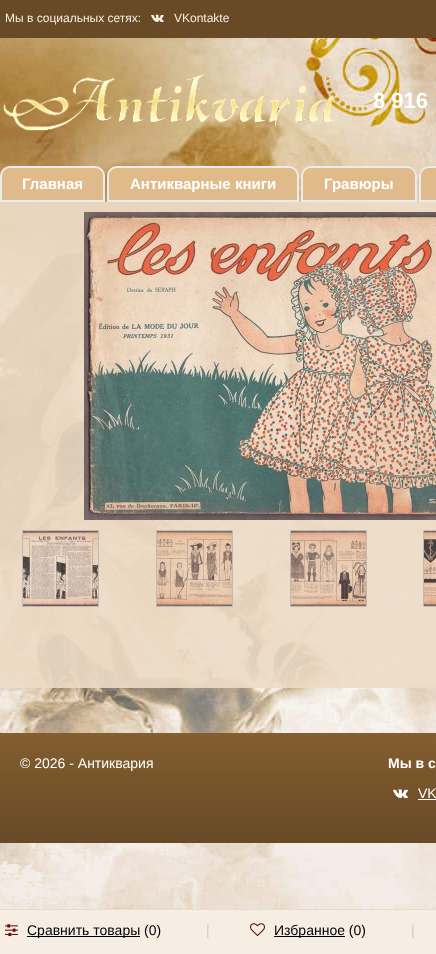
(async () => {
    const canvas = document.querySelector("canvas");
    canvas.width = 436;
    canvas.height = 954;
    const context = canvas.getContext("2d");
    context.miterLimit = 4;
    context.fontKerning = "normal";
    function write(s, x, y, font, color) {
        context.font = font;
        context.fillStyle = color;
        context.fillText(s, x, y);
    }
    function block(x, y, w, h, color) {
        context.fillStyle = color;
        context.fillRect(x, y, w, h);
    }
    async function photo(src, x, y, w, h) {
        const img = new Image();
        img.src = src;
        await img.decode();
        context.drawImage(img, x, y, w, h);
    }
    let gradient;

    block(0, 0, 436, 954, "rgb(255, 255, 255)");
    await photo("media/1.png", 0, 38, 436, 871);
    block(0, 0, 436, 38, "rgb(104, 75, 38)");
    write("Мы в социальных сетях:", 5, 22, "12px Liberation Sans", "rgb(246, 238, 227)");
    await photo("media/2.png", 151, 14, 13, 8);
    write("VKontakte", 174, 22, "12px Liberation Sans", "rgb(246, 238, 227)");
    await photo("media/3.png", 3, 74, 332, 57);
    write("8 916", 373, 108, "bold 22px Liberation Sans", "rgb(255, 255, 255)");
    context.save();
    context.beginPath();
    context.roundRect(0, 166, 105, 36, [10, 10, 0, 0]);
    context.clip();
    gradient = context.createLinearGradient(53, 168, 53, 200);
    gradient.addColorStop(0, "rgb(225, 187, 135)");
    gradient.addColorStop(1, "rgb(222, 187, 143)");
    context.fillStyle = gradient;
    context.fillRect(0, 168, 105, 32);
    context.restore();
    context.beginPath();
    context.roundRect(1, 167, 103, 34, [9, 9, 0, 0]);
    context.strokeStyle = "rgb(235, 235, 235)";
    context.lineWidth = 2;
    context.stroke();
    write("Главная", 22, 189, "bold 15px Liberation Sans", "rgb(255, 255, 255)");
    context.save();
    context.beginPath();
    context.roundRect(107, 166, 192, 36, [10, 10, 0, 0]);
    context.clip();
    gradient = context.createLinearGradient(203, 168, 203, 200);
    gradient.addColorStop(0, "rgb(225, 187, 135)");
    gradient.addColorStop(1, "rgb(222, 187, 143)");
    context.fillStyle = gradient;
    context.fillRect(107, 168, 192, 32);
    context.restore();
    context.beginPath();
    context.roundRect(108, 167, 190, 34, [9, 9, 0, 0]);
    context.stroke();
    write("Антикварные книги", 130, 189, "bold 15px Liberation Sans", "rgb(255, 255, 255)");
    context.save();
    context.beginPath();
    context.roundRect(301, 166, 116, 36, [10, 10, 0, 0]);
    context.clip();
    gradient = context.createLinearGradient(359, 168, 359, 200);
    gradient.addColorStop(0, "rgb(225, 187, 135)");
    gradient.addColorStop(1, "rgb(222, 187, 143)");
    context.fillStyle = gradient;
    context.fillRect(301, 168, 116, 32);
    context.restore();
    context.beginPath();
    context.roundRect(302, 167, 114, 34, [9, 9, 0, 0]);
    context.stroke();
    write("Гравюры", 324, 189, "bold 15px Liberation Sans", "rgb(255, 255, 255)");
    context.save();
    context.beginPath();
    context.moveTo(429, 166);
    context.lineTo(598, 166);
    context.bezierCurveTo(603.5, 166, 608, 170.5, 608, 176);
    context.lineTo(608, 202);
    context.lineTo(419, 202);
    context.lineTo(419, 176);
    context.bezierCurveTo(419, 170.5, 423.5, 166, 429, 166);
    context.closePath();
    context.clip();
    gradient = context.createLinearGradient(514, 168, 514, 200);
    gradient.addColorStop(0, "rgb(225, 187, 135)");
    gradient.addColorStop(1, "rgb(222, 187, 143)");
    context.fillStyle = gradient;
    context.fillRect(419, 168, 17, 32);
    context.restore();
    context.beginPath();
    context.moveTo(429, 167);
    context.lineTo(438, 167);
    context.bezierCurveTo(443, 167, 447, 171, 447, 176);
    context.lineTo(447, 201);
    context.lineTo(420, 201);
    context.lineTo(420, 176);
    context.bezierCurveTo(420, 171, 424, 167, 429, 167);
    context.closePath();
    context.stroke();
    block(0, 202, 436, 425, "rgba(237, 219, 198, 0.9)");
    await photo("media/4.png", 84, 212, 352, 308);
    context.strokeStyle = "rgb(187, 187, 187)";
    context.lineWidth = 1;
    context.strokeRect(22.5, 530.5, 76, 76);
    await photo("media/5.png", 23, 531, 75, 75);
    context.strokeRect(156.5, 530.5, 76, 76);
    await photo("media/6.png", 157, 531, 75, 75);
    context.strokeRect(290.5, 530.5, 76, 76);
    await photo("media/7.png", 291, 531, 75, 75);
    context.strokeRect(423.5, 530.5, 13, 76);
    await photo("media/8.png", 424, 531, 12, 75);
    block(0, 627, 436, 61, "rgba(237, 219, 198, 0.9)");
    gradient = context.createLinearGradient(218, 733, 218, 843);
    gradient.addColorStop(0, "rgb(131, 94, 48)");
    gradient.addColorStop(1, "rgb(103, 74, 38)");
    context.fillStyle = gradient;
    context.fillRect(0, 733, 436, 110);
    write("© 2026 - Антиквария", 20, 768, "14px Liberation Sans", "rgb(255, 255, 255)");
    write("Мы в с", 388, 768, "bold 14px Liberation Sans", "rgb(255, 255, 255)");
    await photo("media/9.png", 393, 789, 15, 9);
    write("VK", 418, 798, "14px Liberation Sans", "rgb(255, 255, 255)");
    block(418, 799, 18, 1, "rgb(255, 255, 255)");
    block(0, 910, 436, 44, "rgb(246, 238, 227)");
    block(0, 909, 436, 1, "rgb(228, 220, 210)");
    await photo("media/10.png", 5, 924, 13, 13);
    block(27, 936, 113, 1, "rgb(0, 0, 0)");
    write("Сравнить товары (0)", 27, 935, "14px Liberation Sans", "rgb(0, 0, 0)");
    write("|", 206, 935, "14px Liberation Sans", "rgb(204, 204, 204)");
    await photo("media/11.png", 250, 923, 15, 13);
    block(274, 936, 71, 1, "rgb(0, 0, 0)");
    write("Избранное (0)", 274, 935, "14px Liberation Sans", "rgb(0, 0, 0)");
    write("|", 411, 935, "14px Liberation Sans", "rgb(204, 204, 204)");
})();
